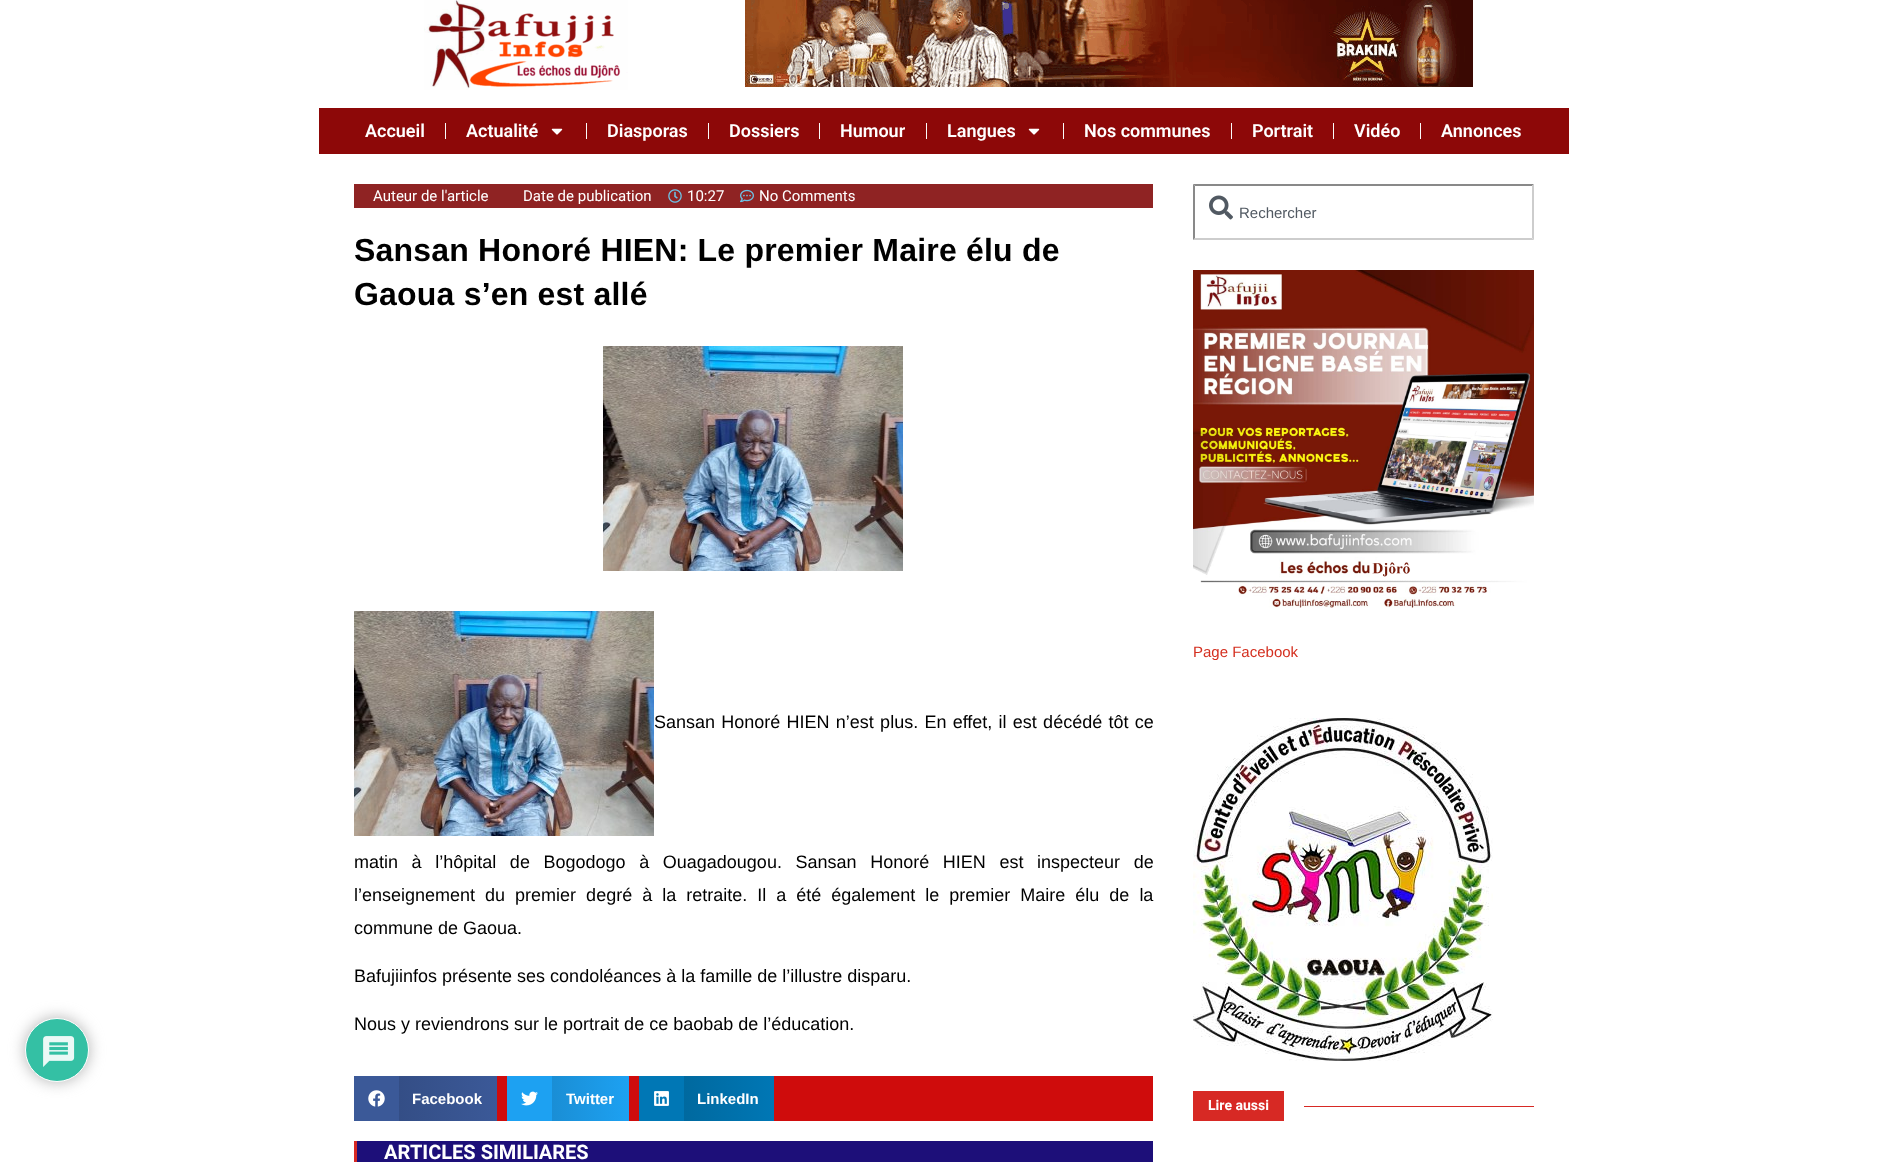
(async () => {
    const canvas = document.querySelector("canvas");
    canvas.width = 1887;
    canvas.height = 1162;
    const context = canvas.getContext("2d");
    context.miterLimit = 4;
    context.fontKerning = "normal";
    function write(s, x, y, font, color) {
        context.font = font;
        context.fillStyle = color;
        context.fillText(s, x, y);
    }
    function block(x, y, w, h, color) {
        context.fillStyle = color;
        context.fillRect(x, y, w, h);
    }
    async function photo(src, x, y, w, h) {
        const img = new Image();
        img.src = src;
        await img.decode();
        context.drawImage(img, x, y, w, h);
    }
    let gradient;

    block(0, 0, 1887, 1162, "rgb(255, 255, 255)");
    await photo("media/1.png", 424, 0, 204, 90);
    await photo("media/2.png", 745, 0, 728, 87);
    block(319, 108, 1250, 46, "rgb(141, 8, 8)");
    write("Accueil", 365, 137, "600 18px Roboto", "rgb(255, 255, 255)");
    block(445, 123, 1, 16, "rgb(250, 250, 250)");
    write("Actualité", 466, 137, "600 18px Roboto", "rgb(255, 255, 255)");
    await photo("media/3.png", 551, 128, 12, 7);
    block(586, 123, 1, 16, "rgb(250, 250, 250)");
    write("Diasporas", 607, 137, "600 18px Roboto", "rgb(255, 255, 255)");
    block(708, 123, 1, 16, "rgb(250, 250, 250)");
    write("Dossiers", 729, 137, "600 18px Roboto", "rgb(255, 255, 255)");
    block(819, 123, 1, 16, "rgb(250, 250, 250)");
    write("Humour", 840, 137, "600 18px Roboto", "rgb(255, 255, 255)");
    block(926, 123, 1, 16, "rgb(250, 250, 250)");
    write("Langues", 947, 137, "600 18px Roboto", "rgb(255, 255, 255)");
    await photo("media/3.png", 1028, 128, 12, 7);
    block(1063, 123, 1, 16, "rgb(250, 250, 250)");
    write("Nos communes", 1084, 137, "600 18px Roboto", "rgb(255, 255, 255)");
    block(1231, 123, 1, 16, "rgb(250, 250, 250)");
    write("Portrait", 1252, 137, "600 18px Roboto", "rgb(255, 255, 255)");
    block(1333, 123, 1, 16, "rgb(250, 250, 250)");
    write("Vidéo", 1354, 137, "600 18px Roboto", "rgb(255, 255, 255)");
    block(1420, 123, 1, 16, "rgb(250, 250, 250)");
    write("Annonces", 1441, 137, "600 18px Roboto", "rgb(255, 255, 255)");
    context.fillStyle = "rgb(179, 179, 179)";
    context.filter = "blur(7.5px)";
    context.beginPath();
    context.roundRect(25, 1018, 64, 64, 32);
    context.fill();
    context.filter = "none";
    context.fillStyle = "rgb(52, 192, 164)";
    context.beginPath();
    context.arc(57, 1050, 31.5, 0, Math.PI * 2);
    context.fill();
    context.strokeStyle = "rgb(255, 255, 255)";
    context.stroke();
    await photo("media/4.png", 43, 1036, 32, 31);
    block(354, 184, 799, 24, "rgb(143, 35, 35)");
    write("Auteur de l'article", 373, 201, "15px Roboto", "rgb(255, 255, 255)");
    write("Date de publication", 523, 201, "15px Roboto", "rgb(255, 255, 255)");
    await photo("media/5.png", 668, 189, 14, 14);
    write("10:27", 687, 201, "15px Roboto", "rgb(255, 255, 255)");
    await photo("media/6.png", 740, 189, 14, 14);
    write("No Comments", 759, 201, "15px Roboto", "rgb(255, 255, 255)");
    context.letterSpacing = "0.2px";
    write("Sansan Honoré HIEN: Le premier Maire élu de", 354, 261, "bold 32px Liberation Sans", "rgb(0, 0, 0)");
    write("Gaoua s’en est allé", 354, 305, "bold 32px Liberation Sans", "rgb(0, 0, 0)");
    await photo("media/7.png", 603, 346, 300, 225);
    await photo("media/7.png", 354, 611, 300, 225);
    context.letterSpacing = "0px";
    context.wordSpacing = "1.25px";
    write("Sansan Honoré HIEN n’est plus. En effet, il est décédé tôt ce", 654, 728, "18px Liberation Sans", "rgb(0, 0, 0)");
    context.wordSpacing = "8.6px";
    write("matin à l’hôpital de Bogodogo à Ouagadougou. Sansan Honoré HIEN est inspecteur de", 354, 868, "18px Liberation Sans", "rgb(0, 0, 0)");
    context.wordSpacing = "5px";
    write("l’enseignement du premier degré à la retraite. Il a été également le premier Maire élu de la", 354, 901, "18px Liberation Sans", "rgb(0, 0, 0)");
    context.wordSpacing = "0px";
    write("commune de Gaoua.", 354, 934, "18px Liberation Sans", "rgb(0, 0, 0)");
    write("Bafujiinfos présente ses condoléances à la famille de l’illustre disparu.", 354, 982, "18px Liberation Sans", "rgb(0, 0, 0)");
    write("Nous y reviendrons sur le portrait de ce baobab de l’éducation.", 354, 1030, "18px Liberation Sans", "rgb(0, 0, 0)");
    block(497, 1076, 656, 45, "rgb(207, 12, 12)");
    block(354, 1076, 45, 45, "rgb(59, 89, 152)");
    await photo("media/8.png", 368, 1090, 17, 17);
    gradient = context.createLinearGradient(399, 1099, 497, 1099);
    gradient.addColorStop(0, "rgb(52, 78, 134)");
    gradient.addColorStop(1, "rgb(59, 89, 152)");
    context.fillStyle = gradient;
    context.fillRect(399, 1076, 98, 45);
    write("Facebook", 412, 1104, "bold 15px Arimo", "rgb(255, 255, 255)");
    block(507, 1076, 45, 45, "rgb(29, 161, 242)");
    await photo("media/9.png", 521, 1091, 17, 15);
    gradient = context.createLinearGradient(552, 1099, 629, 1099);
    gradient.addColorStop(0, "rgb(26, 142, 213)");
    gradient.addColorStop(1, "rgb(29, 161, 242)");
    context.fillStyle = gradient;
    context.fillRect(552, 1076, 77, 45);
    write("Twitter", 566, 1104, "bold 15px Arimo", "rgb(255, 255, 255)");
    block(639, 1076, 45, 45, "rgb(0, 119, 181)");
    await photo("media/10.png", 654, 1091, 15, 15);
    gradient = context.createLinearGradient(684, 1099, 774, 1099);
    gradient.addColorStop(0, "rgb(0, 105, 159)");
    gradient.addColorStop(1, "rgb(0, 119, 181)");
    context.fillStyle = gradient;
    context.fillRect(684, 1076, 90, 45);
    write("LinkedIn", 697, 1104, "bold 15px Arimo", "rgb(255, 255, 255)");
    block(357, 1141, 796, 21, "rgb(29, 15, 121)");
    block(354, 1141, 3, 21, "rgb(215, 41, 36)");
    write("ARTICLES SIMILIARES", 384, 1159, "bold 20px Heebo", "rgb(255, 255, 255)");
    await photo("media/11.png", 1209, 195, 24, 25);
    context.fillStyle = "rgb(137, 137, 137)";
    context.beginPath();
    context.moveTo(1193, 184);
    context.lineTo(1534, 184);
    context.lineTo(1532, 186);
    context.lineTo(1195, 186);
    context.closePath();
    context.fill();
    context.fillStyle = "rgb(205, 205, 205)";
    context.beginPath();
    context.moveTo(1534, 184);
    context.lineTo(1534, 240);
    context.lineTo(1532, 238);
    context.lineTo(1532, 186);
    context.closePath();
    context.fill();
    context.beginPath();
    context.moveTo(1534, 240);
    context.lineTo(1193, 240);
    context.lineTo(1195, 238);
    context.lineTo(1532, 238);
    context.closePath();
    context.fill();
    context.fillStyle = "rgb(137, 137, 137)";
    context.beginPath();
    context.moveTo(1193, 240);
    context.lineTo(1193, 184);
    context.lineTo(1195, 186);
    context.lineTo(1195, 238);
    context.closePath();
    context.fill();
    write("Rechercher", 1239, 218, "15px Arimo", "rgb(81, 89, 98)");
    await photo("media/12.png", 1193, 270, 341, 338);
    write("Page Facebook", 1193, 657, "15px Arimo", "rgb(212, 47, 31)");
    await photo("media/13.png", 1193, 718, 300, 343);
    block(1193, 1091, 91, 30, "rgb(215, 41, 36)");
    write("Lire aussi", 1208, 1110, "bold 14px Heebo", "rgb(255, 255, 255)");
    block(1304, 1106, 230, 1, "rgb(215, 41, 36)");
})();
